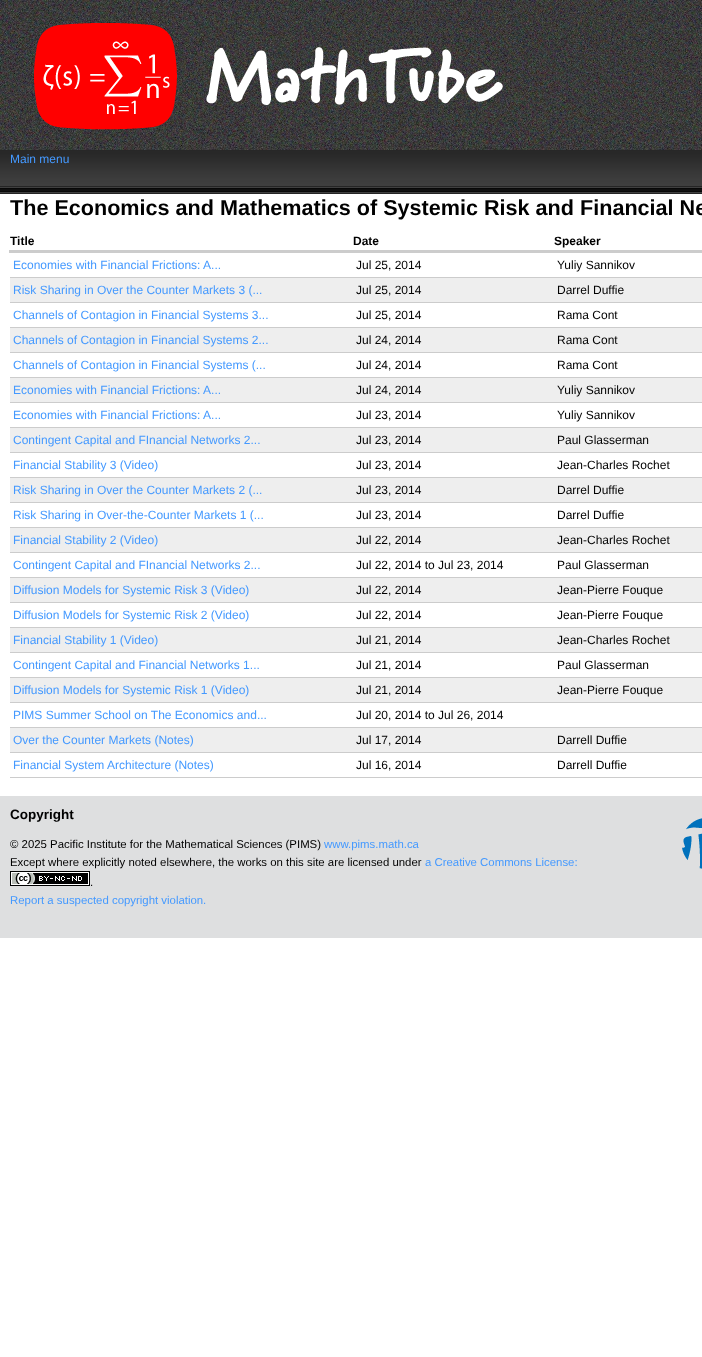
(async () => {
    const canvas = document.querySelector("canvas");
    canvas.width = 702;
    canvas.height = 1357;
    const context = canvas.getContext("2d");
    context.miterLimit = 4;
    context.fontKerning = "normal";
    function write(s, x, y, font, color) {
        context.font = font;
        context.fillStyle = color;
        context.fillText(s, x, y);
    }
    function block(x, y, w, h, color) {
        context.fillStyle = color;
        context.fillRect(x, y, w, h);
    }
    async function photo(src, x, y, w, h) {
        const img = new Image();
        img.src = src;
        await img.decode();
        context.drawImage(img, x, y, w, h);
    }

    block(0, 0, 702, 1357, "rgb(255, 255, 255)");
    await photo("media/1.png", 0, 0, 702, 150);
    await photo("media/2.png", 34, 23, 469, 107);
    await photo("media/3.png", 0, 150, 702, 44);
    write("Main menu", 10, 163, "12px Liberation Sans", "rgb(68, 153, 255)");
    write("The Economics and Mathematics of Systemic Risk and Financial Ne", 10, 215, "bold 21.6px Liberation Sans", "rgb(0, 0, 0)");
    write("Title", 10, 245, "bold 12px Liberation Sans", "rgb(0, 0, 0)");
    write("Date", 353, 245, "bold 12px Liberation Sans", "rgb(0, 0, 0)");
    block(9, 250, 693, 3, "rgb(204, 204, 204)");
    write("Speaker", 554, 245, "bold 12px Liberation Sans", "rgb(0, 0, 0)");
    block(10, 277, 692, 1, "rgb(204, 204, 204)");
    write("Economies with Financial Frictions: A...", 13, 269, "12px Liberation Sans", "rgb(68, 153, 255)");
    write("Jul 25, 2014", 356, 269, "12px Liberation Sans", "rgb(0, 0, 0)");
    write("Yuliy Sannikov", 557, 269, "12px Liberation Sans", "rgb(0, 0, 0)");
    block(10, 278, 692, 24, "rgb(238, 238, 238)");
    block(10, 302, 692, 1, "rgb(204, 204, 204)");
    write("Risk Sharing in Over the Counter Markets 3 (...", 13, 294, "12px Liberation Sans", "rgb(68, 153, 255)");
    write("Jul 25, 2014", 356, 294, "12px Liberation Sans", "rgb(0, 0, 0)");
    write("Darrel Duffie", 557, 294, "12px Liberation Sans", "rgb(0, 0, 0)");
    block(10, 327, 692, 1, "rgb(204, 204, 204)");
    write("Channels of Contagion in Financial Systems 3...", 13, 319, "12px Liberation Sans", "rgb(68, 153, 255)");
    write("Jul 25, 2014", 356, 319, "12px Liberation Sans", "rgb(0, 0, 0)");
    write("Rama Cont", 557, 319, "12px Liberation Sans", "rgb(0, 0, 0)");
    block(10, 328, 692, 24, "rgb(238, 238, 238)");
    block(10, 352, 692, 1, "rgb(204, 204, 204)");
    write("Channels of Contagion in Financial Systems 2...", 13, 344, "12px Liberation Sans", "rgb(68, 153, 255)");
    write("Jul 24, 2014", 356, 344, "12px Liberation Sans", "rgb(0, 0, 0)");
    write("Rama Cont", 557, 344, "12px Liberation Sans", "rgb(0, 0, 0)");
    block(10, 377, 692, 1, "rgb(204, 204, 204)");
    write("Channels of Contagion in Financial Systems (...", 13, 369, "12px Liberation Sans", "rgb(68, 153, 255)");
    write("Jul 24, 2014", 356, 369, "12px Liberation Sans", "rgb(0, 0, 0)");
    write("Rama Cont", 557, 369, "12px Liberation Sans", "rgb(0, 0, 0)");
    block(10, 378, 692, 24, "rgb(238, 238, 238)");
    block(10, 402, 692, 1, "rgb(204, 204, 204)");
    write("Economies with Financial Frictions: A...", 13, 394, "12px Liberation Sans", "rgb(68, 153, 255)");
    write("Jul 24, 2014", 356, 394, "12px Liberation Sans", "rgb(0, 0, 0)");
    write("Yuliy Sannikov", 557, 394, "12px Liberation Sans", "rgb(0, 0, 0)");
    block(10, 427, 692, 1, "rgb(204, 204, 204)");
    write("Economies with Financial Frictions: A...", 13, 419, "12px Liberation Sans", "rgb(68, 153, 255)");
    write("Jul 23, 2014", 356, 419, "12px Liberation Sans", "rgb(0, 0, 0)");
    write("Yuliy Sannikov", 557, 419, "12px Liberation Sans", "rgb(0, 0, 0)");
    block(10, 428, 692, 24, "rgb(238, 238, 238)");
    block(10, 452, 692, 1, "rgb(204, 204, 204)");
    write("Contingent Capital and FInancial Networks 2...", 13, 444, "12px Liberation Sans", "rgb(68, 153, 255)");
    write("Jul 23, 2014", 356, 444, "12px Liberation Sans", "rgb(0, 0, 0)");
    write("Paul Glasserman", 557, 444, "12px Liberation Sans", "rgb(0, 0, 0)");
    block(10, 477, 692, 1, "rgb(204, 204, 204)");
    write("Financial Stability 3 (Video)", 13, 469, "12px Liberation Sans", "rgb(68, 153, 255)");
    write("Jul 23, 2014", 356, 469, "12px Liberation Sans", "rgb(0, 0, 0)");
    write("Jean-Charles Rochet", 557, 469, "12px Liberation Sans", "rgb(0, 0, 0)");
    block(10, 478, 692, 24, "rgb(238, 238, 238)");
    block(10, 502, 692, 1, "rgb(204, 204, 204)");
    write("Risk Sharing in Over the Counter Markets 2 (...", 13, 494, "12px Liberation Sans", "rgb(68, 153, 255)");
    write("Jul 23, 2014", 356, 494, "12px Liberation Sans", "rgb(0, 0, 0)");
    write("Darrel Duffie", 557, 494, "12px Liberation Sans", "rgb(0, 0, 0)");
    block(10, 527, 692, 1, "rgb(204, 204, 204)");
    write("Risk Sharing in Over-the-Counter Markets 1 (...", 13, 519, "12px Liberation Sans", "rgb(68, 153, 255)");
    write("Jul 23, 2014", 356, 519, "12px Liberation Sans", "rgb(0, 0, 0)");
    write("Darrel Duffie", 557, 519, "12px Liberation Sans", "rgb(0, 0, 0)");
    block(10, 528, 692, 24, "rgb(238, 238, 238)");
    block(10, 552, 692, 1, "rgb(204, 204, 204)");
    write("Financial Stability 2 (Video)", 13, 544, "12px Liberation Sans", "rgb(68, 153, 255)");
    write("Jul 22, 2014", 356, 544, "12px Liberation Sans", "rgb(0, 0, 0)");
    write("Jean-Charles Rochet", 557, 544, "12px Liberation Sans", "rgb(0, 0, 0)");
    block(10, 577, 692, 1, "rgb(204, 204, 204)");
    write("Contingent Capital and FInancial Networks 2...", 13, 569, "12px Liberation Sans", "rgb(68, 153, 255)");
    write("Jul 22, 2014 to Jul 23, 2014", 356, 569, "12px Liberation Sans", "rgb(0, 0, 0)");
    write("Paul Glasserman", 557, 569, "12px Liberation Sans", "rgb(0, 0, 0)");
    block(10, 578, 692, 24, "rgb(238, 238, 238)");
    block(10, 602, 692, 1, "rgb(204, 204, 204)");
    write("Diffusion Models for Systemic Risk 3 (Video)", 13, 594, "12px Liberation Sans", "rgb(68, 153, 255)");
    write("Jul 22, 2014", 356, 594, "12px Liberation Sans", "rgb(0, 0, 0)");
    write("Jean-Pierre Fouque", 557, 594, "12px Liberation Sans", "rgb(0, 0, 0)");
    block(10, 627, 692, 1, "rgb(204, 204, 204)");
    write("Diffusion Models for Systemic Risk 2 (Video)", 13, 619, "12px Liberation Sans", "rgb(68, 153, 255)");
    write("Jul 22, 2014", 356, 619, "12px Liberation Sans", "rgb(0, 0, 0)");
    write("Jean-Pierre Fouque", 557, 619, "12px Liberation Sans", "rgb(0, 0, 0)");
    block(10, 628, 692, 24, "rgb(238, 238, 238)");
    block(10, 652, 692, 1, "rgb(204, 204, 204)");
    write("Financial Stability 1 (Video)", 13, 644, "12px Liberation Sans", "rgb(68, 153, 255)");
    write("Jul 21, 2014", 356, 644, "12px Liberation Sans", "rgb(0, 0, 0)");
    write("Jean-Charles Rochet", 557, 644, "12px Liberation Sans", "rgb(0, 0, 0)");
    block(10, 677, 692, 1, "rgb(204, 204, 204)");
    write("Contingent Capital and Financial Networks 1...", 13, 669, "12px Liberation Sans", "rgb(68, 153, 255)");
    write("Jul 21, 2014", 356, 669, "12px Liberation Sans", "rgb(0, 0, 0)");
    write("Paul Glasserman", 557, 669, "12px Liberation Sans", "rgb(0, 0, 0)");
    block(10, 678, 692, 24, "rgb(238, 238, 238)");
    block(10, 702, 692, 1, "rgb(204, 204, 204)");
    write("Diffusion Models for Systemic Risk 1 (Video)", 13, 694, "12px Liberation Sans", "rgb(68, 153, 255)");
    write("Jul 21, 2014", 356, 694, "12px Liberation Sans", "rgb(0, 0, 0)");
    write("Jean-Pierre Fouque", 557, 694, "12px Liberation Sans", "rgb(0, 0, 0)");
    block(10, 727, 692, 1, "rgb(204, 204, 204)");
    write("PIMS Summer School on The Economics and...", 13, 719, "12px Liberation Sans", "rgb(68, 153, 255)");
    write("Jul 20, 2014 to Jul 26, 2014", 356, 719, "12px Liberation Sans", "rgb(0, 0, 0)");
    block(10, 728, 692, 24, "rgb(238, 238, 238)");
    block(10, 752, 692, 1, "rgb(204, 204, 204)");
    write("Over the Counter Markets (Notes)", 13, 744, "12px Liberation Sans", "rgb(68, 153, 255)");
    write("Jul 17, 2014", 356, 744, "12px Liberation Sans", "rgb(0, 0, 0)");
    write("Darrell Duffie", 557, 744, "12px Liberation Sans", "rgb(0, 0, 0)");
    block(10, 777, 692, 1, "rgb(204, 204, 204)");
    write("Financial System Architecture (Notes)", 13, 769, "12px Liberation Sans", "rgb(68, 153, 255)");
    write("Jul 16, 2014", 356, 769, "12px Liberation Sans", "rgb(0, 0, 0)");
    write("Darrell Duffie", 557, 769, "12px Liberation Sans", "rgb(0, 0, 0)");
    block(0, 796, 702, 142, "rgb(222, 223, 224)");
    write("Copyright", 10, 819, "bold 13.5px Liberation Sans", "rgb(0, 0, 0)");
    write("© 2025 Pacific Institute for the Mathematical Sciences (PIMS)", 10, 848, "11.4px Liberation Sans", "rgb(0, 0, 0)");
    write("www.pims.math.ca", 324, 848, "11.4px Liberation Sans", "rgb(68, 153, 255)");
    write("Except where explicitly noted elsewhere, the works on this site are licensed under", 10, 866, "11.4px Liberation Sans", "rgb(0, 0, 0)");
    write("a Creative Commons License:", 425, 866, "11.4px Liberation Sans", "rgb(68, 153, 255)");
    await photo("media/4.png", 10, 871, 80, 15);
    write(".", 90, 886, "11.4px Liberation Sans", "rgb(0, 0, 0)");
    write("Report a suspected copyright violation.", 10, 904, "11.4px Liberation Sans", "rgb(68, 153, 255)");
    await photo("media/5.png", 682, 818, 20, 51);
})();
